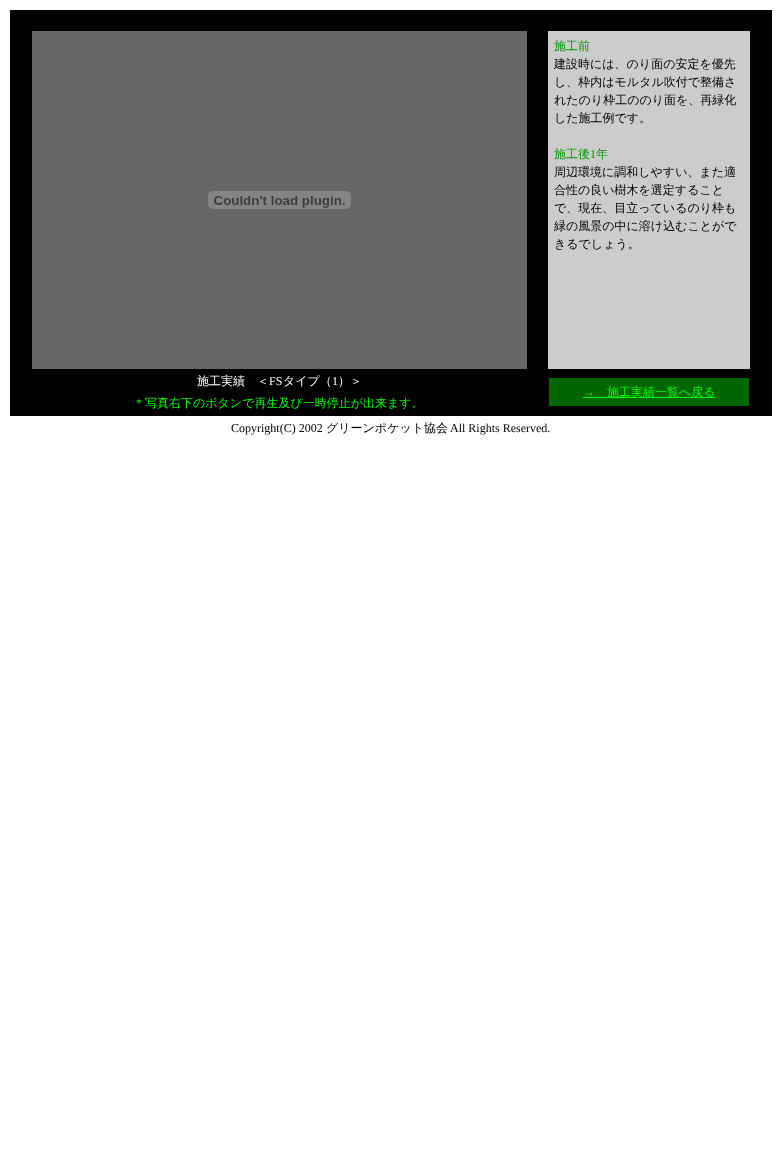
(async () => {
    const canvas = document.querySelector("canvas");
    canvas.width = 779;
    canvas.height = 1170;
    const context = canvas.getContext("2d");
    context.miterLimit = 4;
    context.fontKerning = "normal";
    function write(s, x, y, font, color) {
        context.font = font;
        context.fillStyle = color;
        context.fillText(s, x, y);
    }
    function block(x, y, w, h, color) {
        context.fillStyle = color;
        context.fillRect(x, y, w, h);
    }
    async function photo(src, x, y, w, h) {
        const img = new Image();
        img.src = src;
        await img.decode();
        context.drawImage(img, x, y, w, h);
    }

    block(0, 0, 779, 1170, "rgb(255, 255, 255)");
    block(10, 10, 762, 406, "rgb(0, 0, 0)");
    block(32, 31, 495, 338, "rgb(102, 102, 102)");
    await photo("media/1.png", 208, 191, 143, 18);
    block(548, 31, 202, 338, "rgb(204, 204, 204)");
    write("施工前", 554, 50, "500 12px WenQuanYi Zen Hei", "rgb(0, 153, 0)");
    write("建設時には、のり面の安定を優先", 554, 68, "500 12px WenQuanYi Zen Hei", "rgb(0, 0, 0)");
    write("し、枠内はモルタル吹付で整備さ", 554, 86, "500 12px WenQuanYi Zen Hei", "rgb(0, 0, 0)");
    write("れたのり枠工ののり面を、再緑化", 554, 104, "500 12px WenQuanYi Zen Hei", "rgb(0, 0, 0)");
    write("した施工例です。", 554, 122, "500 12px WenQuanYi Zen Hei", "rgb(0, 0, 0)");
    write("施工後", 554, 158, "500 12px WenQuanYi Zen Hei", "rgb(0, 153, 0)");
    write("1", 590, 158, "12px Liberation Serif", "rgb(0, 153, 0)");
    write("年", 596, 158, "500 12px WenQuanYi Zen Hei", "rgb(0, 153, 0)");
    write("周辺環境に調和しやすい、また適", 554, 176, "500 12px WenQuanYi Zen Hei", "rgb(0, 0, 0)");
    write("合性の良い樹木を選定すること", 554, 194, "500 12px WenQuanYi Zen Hei", "rgb(0, 0, 0)");
    write("で、現在、目立っているのり枠も", 554, 212, "500 12px WenQuanYi Zen Hei", "rgb(0, 0, 0)");
    write("緑の風景の中に溶け込むことがで", 554, 230, "500 12px WenQuanYi Zen Hei", "rgb(0, 0, 0)");
    write("きるでしょう。", 554, 248, "500 12px WenQuanYi Zen Hei", "rgb(0, 0, 0)");
    write("施工実績　＜", 197, 385, "500 12px WenQuanYi Zen Hei", "rgb(255, 255, 255)");
    write("FS", 269, 385, "12px Liberation Serif", "rgb(255, 255, 255)");
    write("タイプ（", 283, 385, "500 12px WenQuanYi Zen Hei", "rgb(255, 255, 255)");
    write("1", 332, 385, "12px Liberation Serif", "rgb(255, 255, 255)");
    write("）＞", 338, 385, "500 12px WenQuanYi Zen Hei", "rgb(255, 255, 255)");
    block(549, 378, 200, 28, "rgb(0, 102, 0)");
    write("→", 583, 396, "12px Liberation Serif", "rgb(0, 255, 0)");
    block(583, 397, 132, 1, "rgb(0, 255, 0)");
    write("施工実績一覧へ戻る", 607, 396, "500 12px WenQuanYi Zen Hei", "rgb(0, 255, 0)");
    write("*", 136, 407, "12px Liberation Serif", "rgb(0, 255, 0)");
    write("写真右下のボタンで再生及び一時停止が出来ます。", 145, 407, "500 12px WenQuanYi Zen Hei", "rgb(0, 255, 0)");
    write("Copyright(C) 2002", 231, 432, "12px Liberation Serif", "rgb(0, 0, 0)");
    write("グリーンポケット協会", 326, 432, "500 12px WenQuanYi Zen Hei", "rgb(0, 0, 0)");
    write("All Rights Reserved.", 450, 432, "12px Liberation Serif", "rgb(0, 0, 0)");
})();
